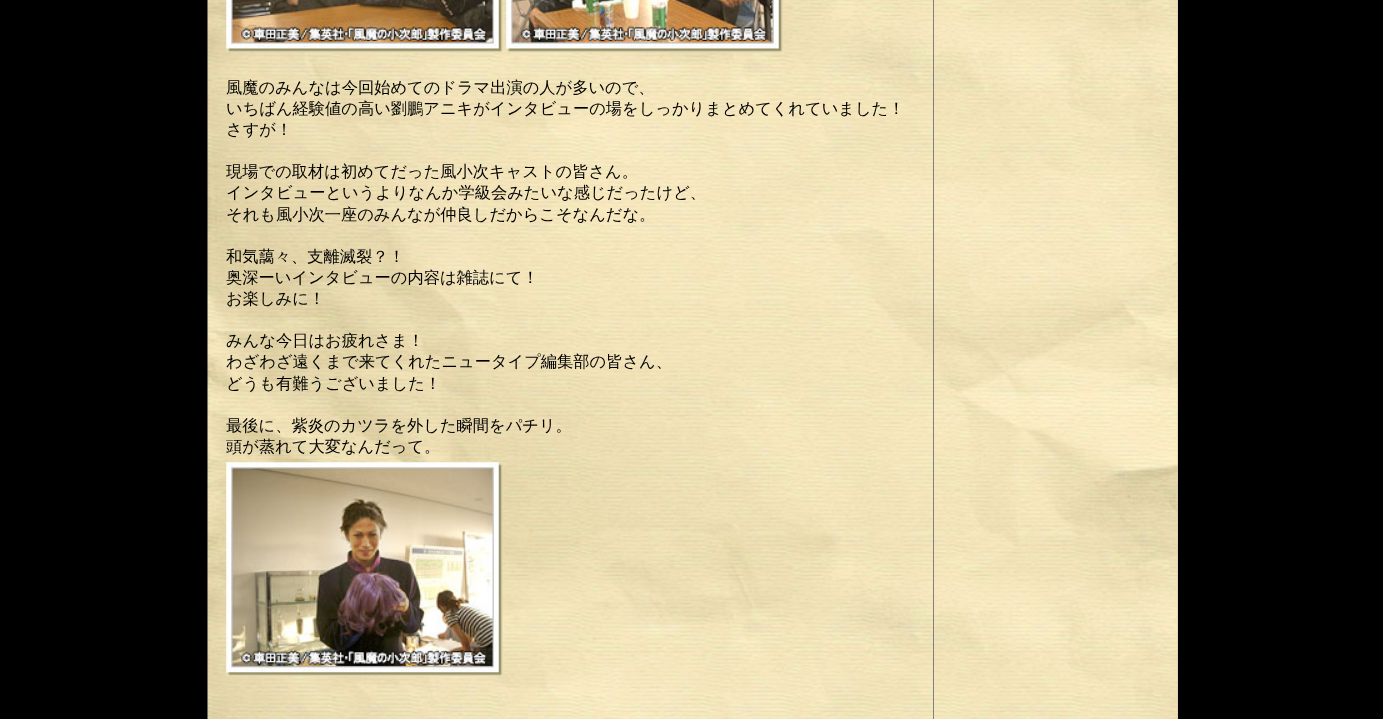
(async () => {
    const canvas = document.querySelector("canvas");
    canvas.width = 1383;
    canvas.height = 719;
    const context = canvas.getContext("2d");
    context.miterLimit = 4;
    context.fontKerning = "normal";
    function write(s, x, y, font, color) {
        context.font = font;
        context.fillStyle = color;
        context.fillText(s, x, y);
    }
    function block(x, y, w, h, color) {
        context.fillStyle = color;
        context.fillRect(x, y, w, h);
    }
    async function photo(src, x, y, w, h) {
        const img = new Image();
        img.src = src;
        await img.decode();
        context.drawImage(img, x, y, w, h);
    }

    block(0, 0, 1383, 719, "rgb(0, 0, 0)");
    block(1177, 0, 1, 719, "rgb(216, 195, 174)");
    await photo("media/1.png", 207, 0, 971, 719);
    block(933, 0, 1, 719, "rgb(129, 129, 129)");
    await photo("media/2.png", 226, 0, 277, 53);
    await photo("media/3.png", 506, 0, 277, 53);
    write("風魔のみんなは今回始めてのドラマ出演の人が多いので、", 226, 93, "500 16.25px WenQuanYi Zen Hei", "rgb(0, 0, 0)");
    write("いちばん経験値の高い劉鵬アニキがインタビューの場をしっかりまとめてくれていました！", 226, 114, "500 16.25px WenQuanYi Zen Hei", "rgb(0, 0, 0)");
    write("さすが！", 226, 135, "500 16.25px WenQuanYi Zen Hei", "rgb(0, 0, 0)");
    write("現場での取材は初めてだった風小次キャストの皆さん。", 226, 177, "500 16.25px WenQuanYi Zen Hei", "rgb(0, 0, 0)");
    write("インタビューというよりなんか学級会みたいな感じだったけど、", 226, 198, "500 16.25px WenQuanYi Zen Hei", "rgb(0, 0, 0)");
    write("それも風小次一座のみんなが仲良しだからこそなんだな。", 226, 220, "500 16.25px WenQuanYi Zen Hei", "rgb(0, 0, 0)");
    write("和気藹々、支離滅裂？！", 226, 262, "500 16.25px WenQuanYi Zen Hei", "rgb(0, 0, 0)");
    write("奥深ーいインタビューの内容は雑誌にて！", 226, 283, "500 16.25px WenQuanYi Zen Hei", "rgb(0, 0, 0)");
    write("お楽しみに！", 226, 304, "500 16.25px WenQuanYi Zen Hei", "rgb(0, 0, 0)");
    write("みんな今日はお疲れさま！", 226, 346, "500 16.25px WenQuanYi Zen Hei", "rgb(0, 0, 0)");
    write("わざわざ遠くまで来てくれたニュータイプ編集部の皆さん、", 226, 367, "500 16.25px WenQuanYi Zen Hei", "rgb(0, 0, 0)");
    write("どうも有難うございました！", 226, 389, "500 16.25px WenQuanYi Zen Hei", "rgb(0, 0, 0)");
    write("最後に、紫炎のカツラを外した瞬間をパチリ。", 226, 431, "500 16.25px WenQuanYi Zen Hei", "rgb(0, 0, 0)");
    write("頭が蒸れて大変なんだって。", 226, 452, "500 16.25px WenQuanYi Zen Hei", "rgb(0, 0, 0)");
    await photo("media/4.png", 226, 462, 277, 214);
})();
